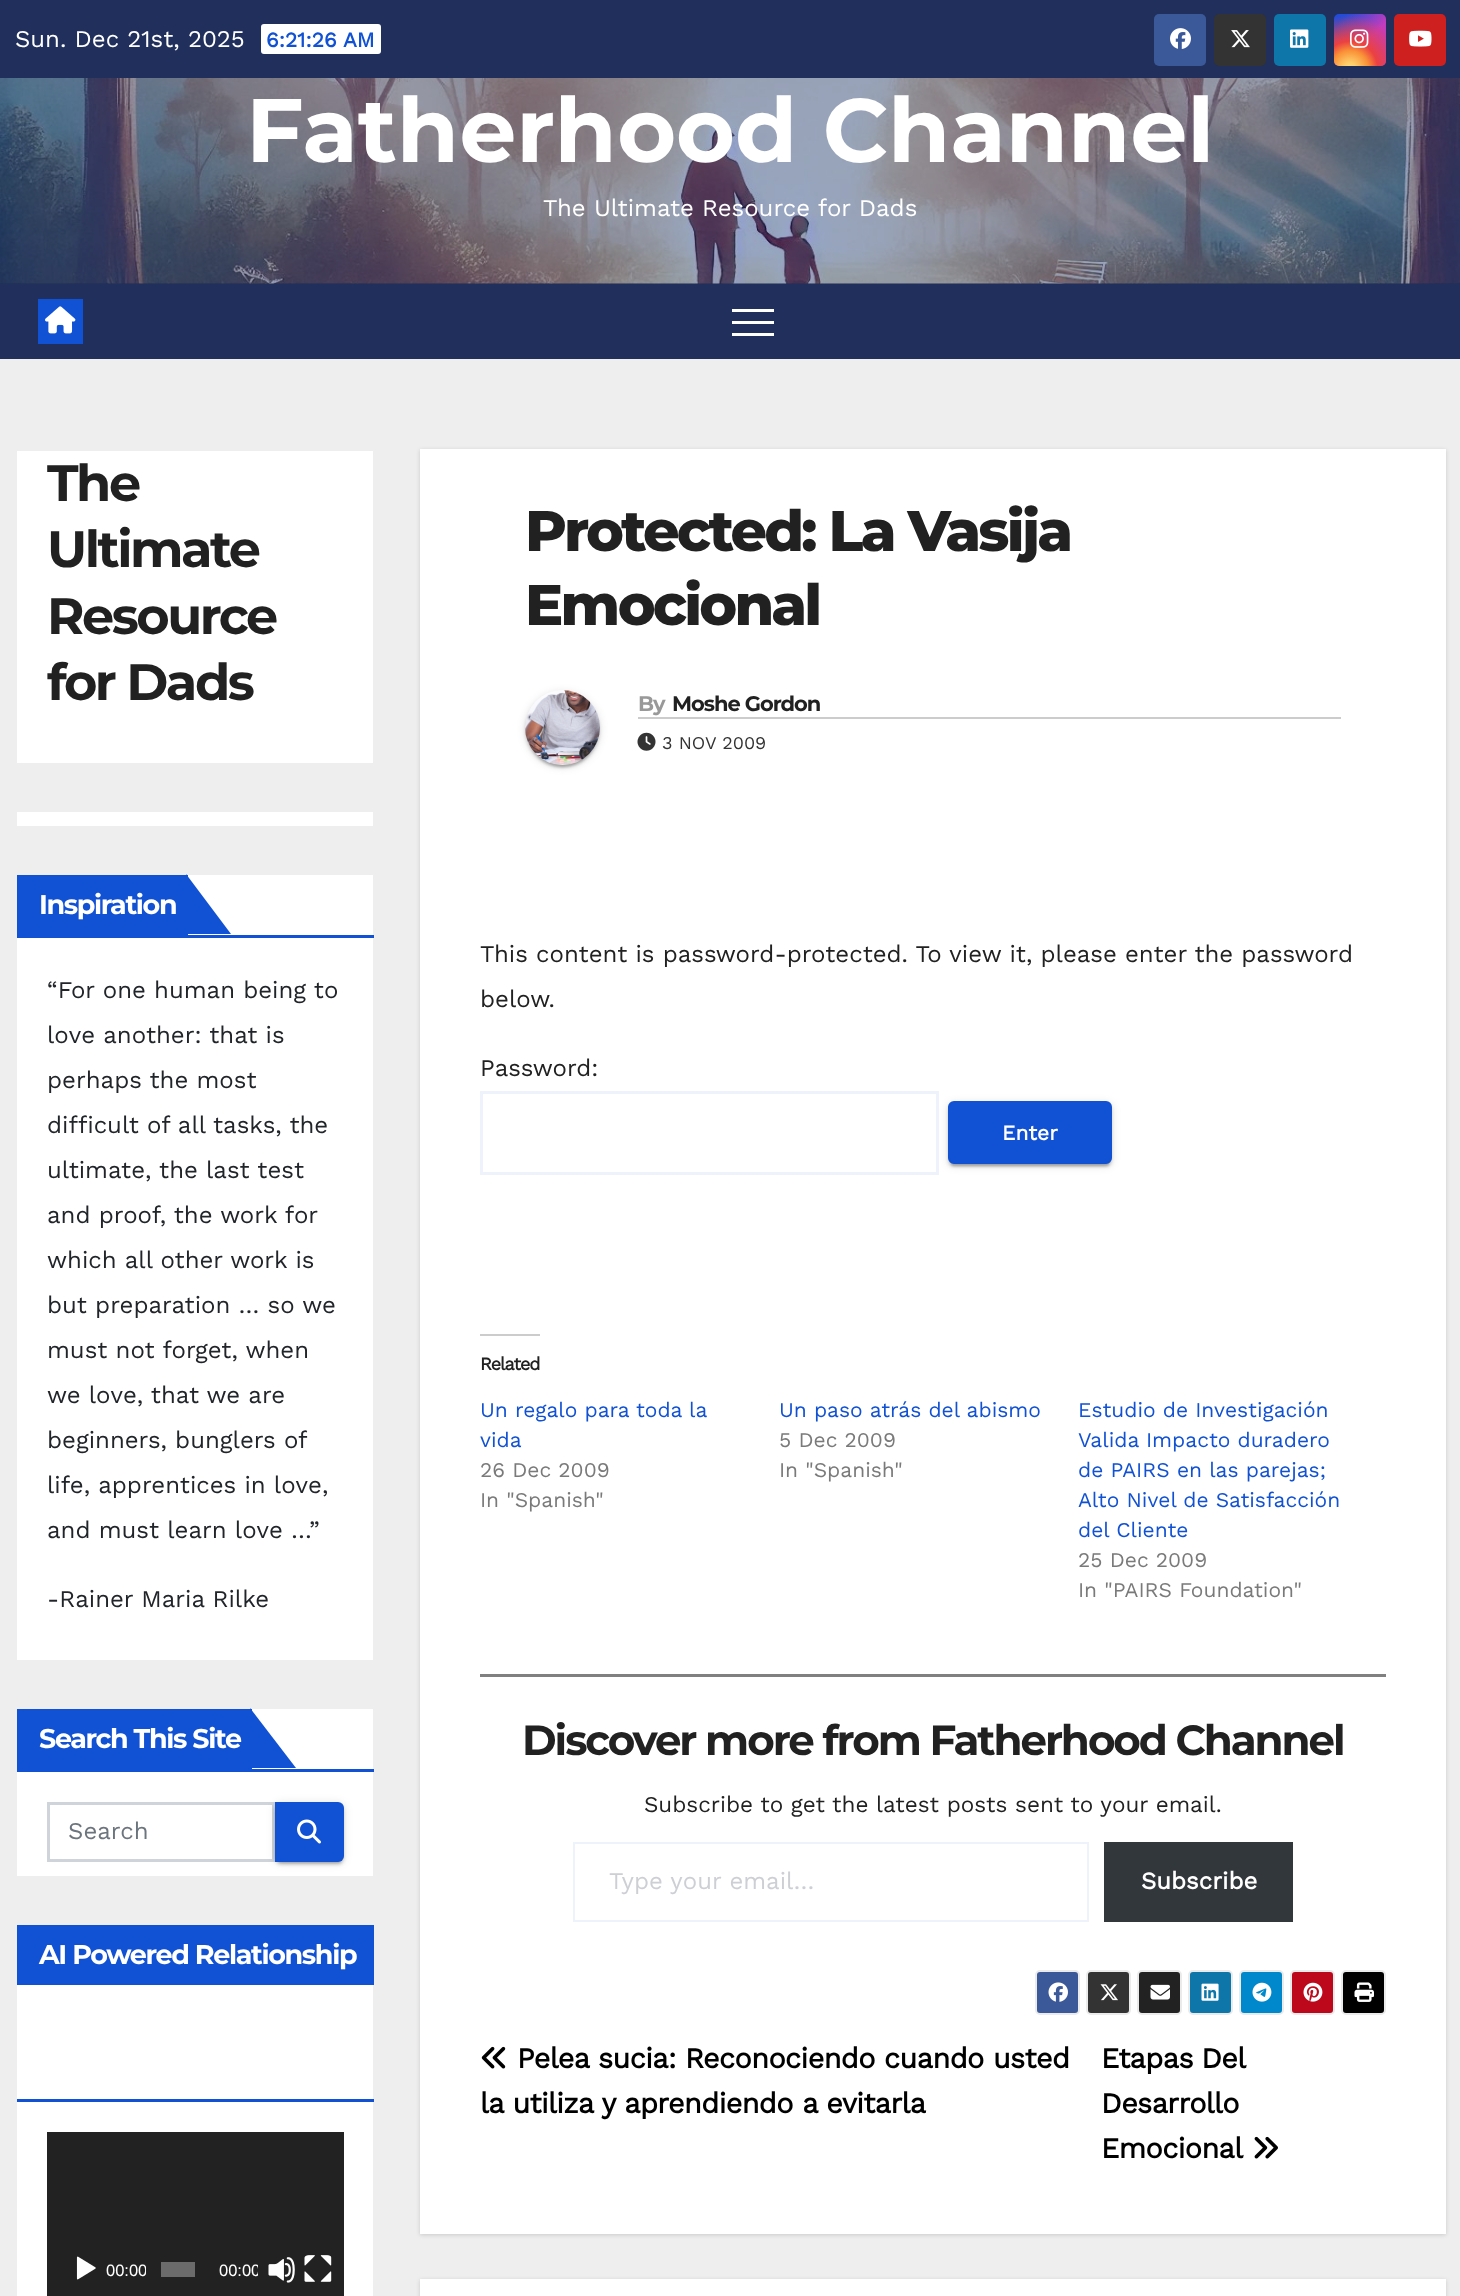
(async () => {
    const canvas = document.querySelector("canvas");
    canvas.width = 1460;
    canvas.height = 2296;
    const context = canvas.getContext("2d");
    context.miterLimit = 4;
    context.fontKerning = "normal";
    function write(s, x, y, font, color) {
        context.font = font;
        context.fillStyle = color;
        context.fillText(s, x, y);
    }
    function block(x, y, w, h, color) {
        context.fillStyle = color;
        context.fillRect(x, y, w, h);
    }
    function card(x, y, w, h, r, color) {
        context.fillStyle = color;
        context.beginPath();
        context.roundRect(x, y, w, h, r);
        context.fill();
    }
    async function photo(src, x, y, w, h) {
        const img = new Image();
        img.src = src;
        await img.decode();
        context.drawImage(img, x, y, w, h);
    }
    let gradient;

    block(0, 0, 1460, 2296, "rgb(238, 238, 238)");
    block(0, 0, 1460, 78, "rgb(32, 47, 91)");
    write("Sun. Dec 21st, 2025", 15, 47, "24px Work Sans", "rgb(255, 255, 255)");
    card(261, 24, 120, 30, 3, "rgb(255, 255, 255)");
    write("6:21:26 AM", 266, 47, "bold 21px Work Sans", "rgb(17, 81, 211)");
    card(1154, 14, 52, 52, 5, "rgb(59, 89, 152)");
    await photo("media/1.png", 1170, 28, 21, 21);
    card(1214, 14, 52, 52, 5, "rgb(51, 51, 51)");
    await photo("media/2.png", 1231, 30, 19, 18);
    card(1274, 14, 52, 52, 5, "rgb(14, 118, 168)");
    await photo("media/3.png", 1290, 29, 19, 19);
    gradient = context.createLinearGradient(1334, 14, 1386, 66);
    gradient.addColorStop(0.12, "rgb(35, 75, 215)");
    gradient.addColorStop(0.58, "rgb(195, 60, 190)");
    context.fillStyle = gradient;
    context.beginPath();
    context.roundRect(1334, 14, 52, 52, 5);
    context.fill();
    gradient = context.createRadialGradient(1350, 69, 0, 1350, 69, 66);
    gradient.addColorStop(0, "rgb(255, 225, 125)");
    gradient.addColorStop(0.1, "rgb(255, 205, 105)");
    gradient.addColorStop(0.28, "rgb(250, 145, 55)");
    gradient.addColorStop(0.42, "rgb(235, 65, 65)");
    gradient.addColorStop(0.82, "rgba(235, 65, 65, 0)");
    context.fillStyle = gradient;
    context.beginPath();
    context.roundRect(1334, 14, 52, 52, 5);
    context.fill();
    await photo("media/4.png", 1350, 29, 19, 19);
    card(1394, 14, 52, 52, 5, "rgb(205, 32, 31)");
    await photo("media/5.png", 1409, 30, 23, 17);
    block(0, 283, 1460, 1, "rgb(31, 44, 84)");
    await photo("media/6.png", 0, 78, 1460, 206);
    write("Fatherhood Channel", 246, 162, "bold 90px Montserrat", "rgb(255, 255, 255)");
    write("The Ultimate Resource for Dads", 543, 216, "24px Work Sans", "rgb(255, 255, 255)");
    block(0, 284, 1460, 75, "rgb(32, 47, 91)");
    block(38, 299, 45, 45, "rgb(17, 81, 211)");
    await photo("media/7.png", 45, 306, 31, 28);
    block(732, 309, 42, 3, "rgb(255, 255, 255)");
    block(732, 321, 42, 3, "rgb(255, 255, 255)");
    block(732, 333, 42, 3, "rgb(255, 255, 255)");
    block(17, 451, 356, 312, "rgb(255, 255, 255)");
    context.letterSpacing = "-2.5px";
    write("The", 47, 501, "bold 51px Montserrat", "rgb(33, 33, 33)");
    write("Ultimate", 47, 567, "bold 51px Montserrat", "rgb(33, 33, 33)");
    write("Resource", 47, 634, "bold 51px Montserrat", "rgb(33, 33, 33)");
    write("for Dads", 47, 700, "bold 51px Montserrat", "rgb(33, 33, 33)");
    block(17, 812, 356, 14, "rgb(255, 255, 255)");
    block(17, 875, 356, 785, "rgb(255, 255, 255)");
    block(17, 935, 357, 3, "rgb(17, 81, 211)");
    block(17, 875, 171, 60, "rgb(17, 81, 211)");
    context.letterSpacing = "-1.35px";
    write("Inspiration", 39, 914, "bold 27px Montserrat", "rgb(255, 255, 255)");
    context.fillStyle = "rgb(17, 81, 211)";
    context.beginPath();
    context.moveTo(186, 934);
    context.lineTo(186, 874);
    context.lineTo(231, 934);
    context.closePath();
    context.fill();
    context.letterSpacing = "0px";
    write("“For one human being to", 47, 998, "24px Work Sans", "rgb(33, 37, 41)");
    write("love another: that is", 47, 1043, "24px Work Sans", "rgb(33, 37, 41)");
    write("perhaps the most", 47, 1088, "24px Work Sans", "rgb(33, 37, 41)");
    write("difficult of all tasks, the", 47, 1133, "24px Work Sans", "rgb(33, 37, 41)");
    write("ultimate, the last test", 47, 1178, "24px Work Sans", "rgb(33, 37, 41)");
    write("and proof, the work for", 47, 1223, "24px Work Sans", "rgb(33, 37, 41)");
    write("which all other work is", 47, 1268, "24px Work Sans", "rgb(33, 37, 41)");
    write("but preparation … so we", 47, 1313, "24px Work Sans", "rgb(33, 37, 41)");
    write("must not forget, when", 47, 1358, "24px Work Sans", "rgb(33, 37, 41)");
    write("we love, that we are", 47, 1403, "24px Work Sans", "rgb(33, 37, 41)");
    write("beginners, bunglers of", 47, 1448, "24px Work Sans", "rgb(33, 37, 41)");
    write("life, apprentices in love,", 47, 1493, "24px Work Sans", "rgb(33, 37, 41)");
    write("and must learn love …”", 47, 1538, "24px Work Sans", "rgb(33, 37, 41)");
    write("-Rainer Maria Rilke", 47, 1607, "24px Work Sans", "rgb(33, 37, 41)");
    block(17, 1709, 356, 167, "rgb(255, 255, 255)");
    block(17, 1769, 357, 3, "rgb(17, 81, 211)");
    block(17, 1709, 235, 60, "rgb(17, 81, 211)");
    context.letterSpacing = "-1.35px";
    write("Search This Site", 39, 1748, "bold 27px Montserrat", "rgb(255, 255, 255)");
    context.fillStyle = "rgb(17, 81, 211)";
    context.beginPath();
    context.moveTo(250, 1768);
    context.lineTo(250, 1708);
    context.lineTo(296, 1768);
    context.closePath();
    context.fill();
    context.strokeStyle = "rgb(206, 212, 218)";
    context.lineWidth = 3;
    context.strokeRect(48.5, 1803.5, 225, 57);
    context.letterSpacing = "0px";
    write("Search", 68, 1839, "24px Work Sans", "rgb(108, 117, 125)");
    context.fillStyle = "rgba(0, 0, 0, 0.12)";
    context.filter = "blur(4px)";
    context.beginPath();
    context.roundRect(275, 1803, 69, 60, 6);
    context.fill();
    context.filter = "none";
    context.fillStyle = "rgba(0, 0, 0, 0.2)";
    context.filter = "blur(1px)";
    context.beginPath();
    context.roundRect(278, 1809, 63, 54, 3);
    context.fill();
    context.filter = "none";
    context.fillStyle = "rgba(0, 0, 0, 0.14)";
    context.filter = "blur(1.5px)";
    context.beginPath();
    context.roundRect(275, 1805, 69, 60, 6);
    context.fill();
    context.filter = "none";
    context.fillStyle = "rgb(17, 81, 211)";
    context.beginPath();
    context.roundRect(275, 1802, 69, 60, [0, 6, 6, 0]);
    context.fill();
    await photo("media/8.png", 297, 1819, 24, 25);
    block(17, 1985, 356, 311, "rgb(255, 255, 255)");
    block(17, 2099, 357, 3, "rgb(17, 81, 211)");
    block(17, 1925, 357, 60, "rgb(17, 81, 211)");
    context.letterSpacing = "-1.35px";
    write("AI Powered Relationship", 39, 1964, "bold 27px Montserrat", "rgb(255, 255, 255)");
    block(47, 2132, 297, 164, "rgb(34, 34, 34)");
    await photo("media/9.png", 76, 2256, 20, 24);
    context.save();
    context.beginPath();
    context.rect(96, 2240, 50, 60);
    context.clip();
    context.letterSpacing = "0px";
    write("00:00", 106, 2276, "16.5px Liberation Sans", "rgb(255, 255, 255)");
    context.restore();
    block(161, 2262, 34, 15, "rgb(107, 107, 107)");
    context.save();
    context.beginPath();
    context.rect(210, 2240, 48, 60);
    context.clip();
    context.letterSpacing = "0px";
    write("00:00", 219, 2276, "16.5px Liberation Sans", "rgb(255, 255, 255)");
    context.restore();
    await photo("media/10.png", 268, 2257, 27, 26);
    await photo("media/11.png", 304, 2255, 28, 27);
    context.fillStyle = "rgba(0, 0, 0, 0.15)";
    context.filter = "blur(2px)";
    context.beginPath();
    context.rect(420, 450, 1026, 1785);
    context.fill();
    context.filter = "none";
    block(420, 449, 1026, 1785, "rgb(255, 255, 255)");
    context.letterSpacing = "-2.8px";
    write("Protected: La Vasija", 525, 551, "800 57px Montserrat", "rgb(33, 33, 33)");
    write("Emocional", 525, 625, "800 57px Montserrat", "rgb(33, 33, 33)");
    context.fillStyle = "rgba(0, 0, 0, 0.12)";
    context.filter = "blur(4px)";
    context.beginPath();
    context.roundRect(525, 692, 75, 75, 37.5);
    context.fill();
    context.filter = "none";
    context.fillStyle = "rgba(0, 0, 0, 0.2)";
    context.filter = "blur(1px)";
    context.beginPath();
    context.roundRect(528, 698, 69, 69, 34.5);
    context.fill();
    context.filter = "none";
    context.fillStyle = "rgba(0, 0, 0, 0.14)";
    context.filter = "blur(1.5px)";
    context.beginPath();
    context.roundRect(525, 693, 75, 75, 37.5);
    context.fill();
    context.filter = "none";
    await photo("media/12.png", 525, 690, 75, 75);
    block(638, 717, 703, 2, "rgb(204, 204, 204)");
    context.letterSpacing = "-1px";
    write("By", 638, 711, "bold 21px Montserrat", "rgb(153, 153, 153)");
    write("Moshe Gordon", 672, 711, "bold 21px Montserrat", "rgb(33, 33, 33)");
    await photo("media/13.png", 637, 732, 19, 19);
    context.letterSpacing = "0px";
    write("3 NOV 2009", 662, 749, "18px Work Sans", "rgb(51, 51, 51)");
    write("This content is password-protected. To view it, please enter the password", 480, 962, "24px Work Sans", "rgb(33, 33, 33)");
    write("below.", 480, 1007, "24px Work Sans", "rgb(33, 33, 33)");
    write("Password:", 480, 1076, "24px Work Sans", "rgb(33, 33, 33)");
    context.strokeStyle = "rgb(238, 243, 251)";
    context.strokeRect(481.5, 1092.5, 456, 81);
    context.fillStyle = "rgba(0, 0, 0, 0.12)";
    context.filter = "blur(4px)";
    context.beginPath();
    context.roundRect(948, 1103, 164, 63, 6);
    context.fill();
    context.filter = "none";
    context.fillStyle = "rgba(0, 0, 0, 0.2)";
    context.filter = "blur(1px)";
    context.beginPath();
    context.roundRect(951, 1109, 158, 57, 3);
    context.fill();
    context.filter = "none";
    context.fillStyle = "rgba(0, 0, 0, 0.14)";
    context.filter = "blur(1.5px)";
    context.beginPath();
    context.roundRect(948, 1104, 164, 63, 6);
    context.fill();
    context.filter = "none";
    context.fillStyle = "rgb(17, 81, 211)";
    context.beginPath();
    context.roundRect(949, 1102, 162, 61, 5);
    context.fill();
    context.strokeStyle = "rgb(17, 81, 211)";
    context.lineWidth = 2;
    context.stroke();
    write("Enter", 1002, 1140, "bold 21px Work Sans", "rgb(255, 255, 255)");
    block(480, 1334, 60, 2, "rgb(204, 204, 204)");
    context.letterSpacing = "-1px";
    write("Related", 480, 1370, "bold 18px Work Sans", "rgb(33, 33, 33)");
    context.letterSpacing = "0px";
    write("Un regalo para toda la", 480, 1417, "21px Work Sans", "rgb(17, 81, 211)");
    write("vida", 480, 1447, "21px Work Sans", "rgb(17, 81, 211)");
    write("26 Dec 2009", 480, 1477, "21px Work Sans", "rgb(122, 122, 122)");
    write("In \"Spanish\"", 480, 1507, "21px Work Sans", "rgb(122, 122, 122)");
    write("Un paso atrás del abismo", 779, 1417, "21px Work Sans", "rgb(17, 81, 211)");
    write("5 Dec 2009", 779, 1447, "21px Work Sans", "rgb(122, 122, 122)");
    write("In \"Spanish\"", 779, 1477, "21px Work Sans", "rgb(122, 122, 122)");
    write("Estudio de Investigación", 1078, 1417, "21px Work Sans", "rgb(17, 81, 211)");
    write("Valida Impacto duradero", 1078, 1447, "21px Work Sans", "rgb(17, 81, 211)");
    write("de PAIRS en las parejas;", 1078, 1477, "21px Work Sans", "rgb(17, 81, 211)");
    write("Alto Nivel de Satisfacción", 1078, 1507, "21px Work Sans", "rgb(17, 81, 211)");
    write("del Cliente", 1078, 1537, "21px Work Sans", "rgb(17, 81, 211)");
    write("25 Dec 2009", 1078, 1567, "21px Work Sans", "rgb(122, 122, 122)");
    write("In \"PAIRS Foundation\"", 1078, 1597, "21px Work Sans", "rgb(122, 122, 122)");
    block(480, 1674, 906, 3, "rgb(128, 128, 128)");
    context.letterSpacing = "-2.1px";
    write("Discover more from Fatherhood Channel", 522, 1755, "bold 42px Montserrat", "rgb(33, 33, 33)");
    context.letterSpacing = "0px";
    write("Subscribe to get the latest posts sent to your email.", 644, 1812, "22.5px Work Sans", "rgb(33, 33, 33)");
    context.strokeStyle = "rgb(238, 243, 251)";
    context.strokeRect(574, 1843, 514, 78);
    write("Type your email…", 609, 1889, "24px Work Sans", "rgb(205, 207, 212)");
    block(1104, 1842, 189, 80, "rgb(50, 55, 60)");
    write("Subscribe", 1141, 1889, "bold 24px Work Sans", "rgb(255, 255, 255)");
    context.fillStyle = "rgb(59, 89, 152)";
    context.beginPath();
    context.roundRect(1036, 1971, 43, 43, 4);
    context.fill();
    context.strokeStyle = "rgb(235, 235, 235)";
    context.stroke();
    await photo("media/14.png", 1048, 1982, 20, 20);
    context.fillStyle = "rgb(51, 51, 51)";
    context.beginPath();
    context.roundRect(1087, 1971, 43, 43, 4);
    context.fill();
    context.stroke();
    await photo("media/15.png", 1100, 1984, 18, 17);
    context.fillStyle = "rgb(34, 34, 34)";
    context.beginPath();
    context.roundRect(1138, 1971, 43, 43, 4);
    context.fill();
    context.stroke();
    await photo("media/16.png", 1150, 1984, 20, 16);
    context.fillStyle = "rgb(14, 118, 168)";
    context.beginPath();
    context.roundRect(1189, 1971, 43, 43, 4);
    context.fill();
    context.stroke();
    await photo("media/17.png", 1201, 1983, 18, 18);
    context.fillStyle = "rgb(0, 136, 204)";
    context.beginPath();
    context.roundRect(1240, 1971, 43, 43, 4);
    context.fill();
    context.stroke();
    await photo("media/18.png", 1252, 1982, 20, 20);
    context.fillStyle = "rgb(189, 8, 28)";
    context.beginPath();
    context.roundRect(1291, 1971, 43, 43, 4);
    context.fill();
    context.stroke();
    await photo("media/19.png", 1303, 1982, 20, 20);
    context.fillStyle = "rgb(0, 0, 0)";
    context.beginPath();
    context.roundRect(1342, 1971, 43, 43, 4);
    context.fill();
    context.stroke();
    await photo("media/20.png", 1354, 1982, 20, 20);
    await photo("media/21.png", 481, 2046, 25, 23);
    context.letterSpacing = "-0.6px";
    write("Pelea sucia: Reconociendo cuando usted", 517, 2068, "bold 28.75px Work Sans", "rgb(0, 0, 0)");
    write("la utiliza y aprendiendo a evitarla", 480, 2113, "bold 28.75px Work Sans", "rgb(0, 0, 0)");
    context.wordSpacing = "-1px";
    write("Etapas Del", 1101, 2068, "bold 28.75px Work Sans", "rgb(0, 0, 0)");
    context.wordSpacing = "0px";
    write("Desarrollo", 1101, 2113, "bold 28.75px Work Sans", "rgb(0, 0, 0)");
    write("Emocional", 1101, 2158, "bold 28.75px Work Sans", "rgb(0, 0, 0)");
    await photo("media/22.png", 1254, 2136, 24, 23);
    context.fillStyle = "rgba(0, 0, 0, 0.15)";
    context.filter = "blur(2px)";
    context.beginPath();
    context.rect(420, 2280, 1026, 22);
    context.fill();
    context.filter = "none";
    block(420, 2279, 1026, 17, "rgb(255, 255, 255)");
})();
